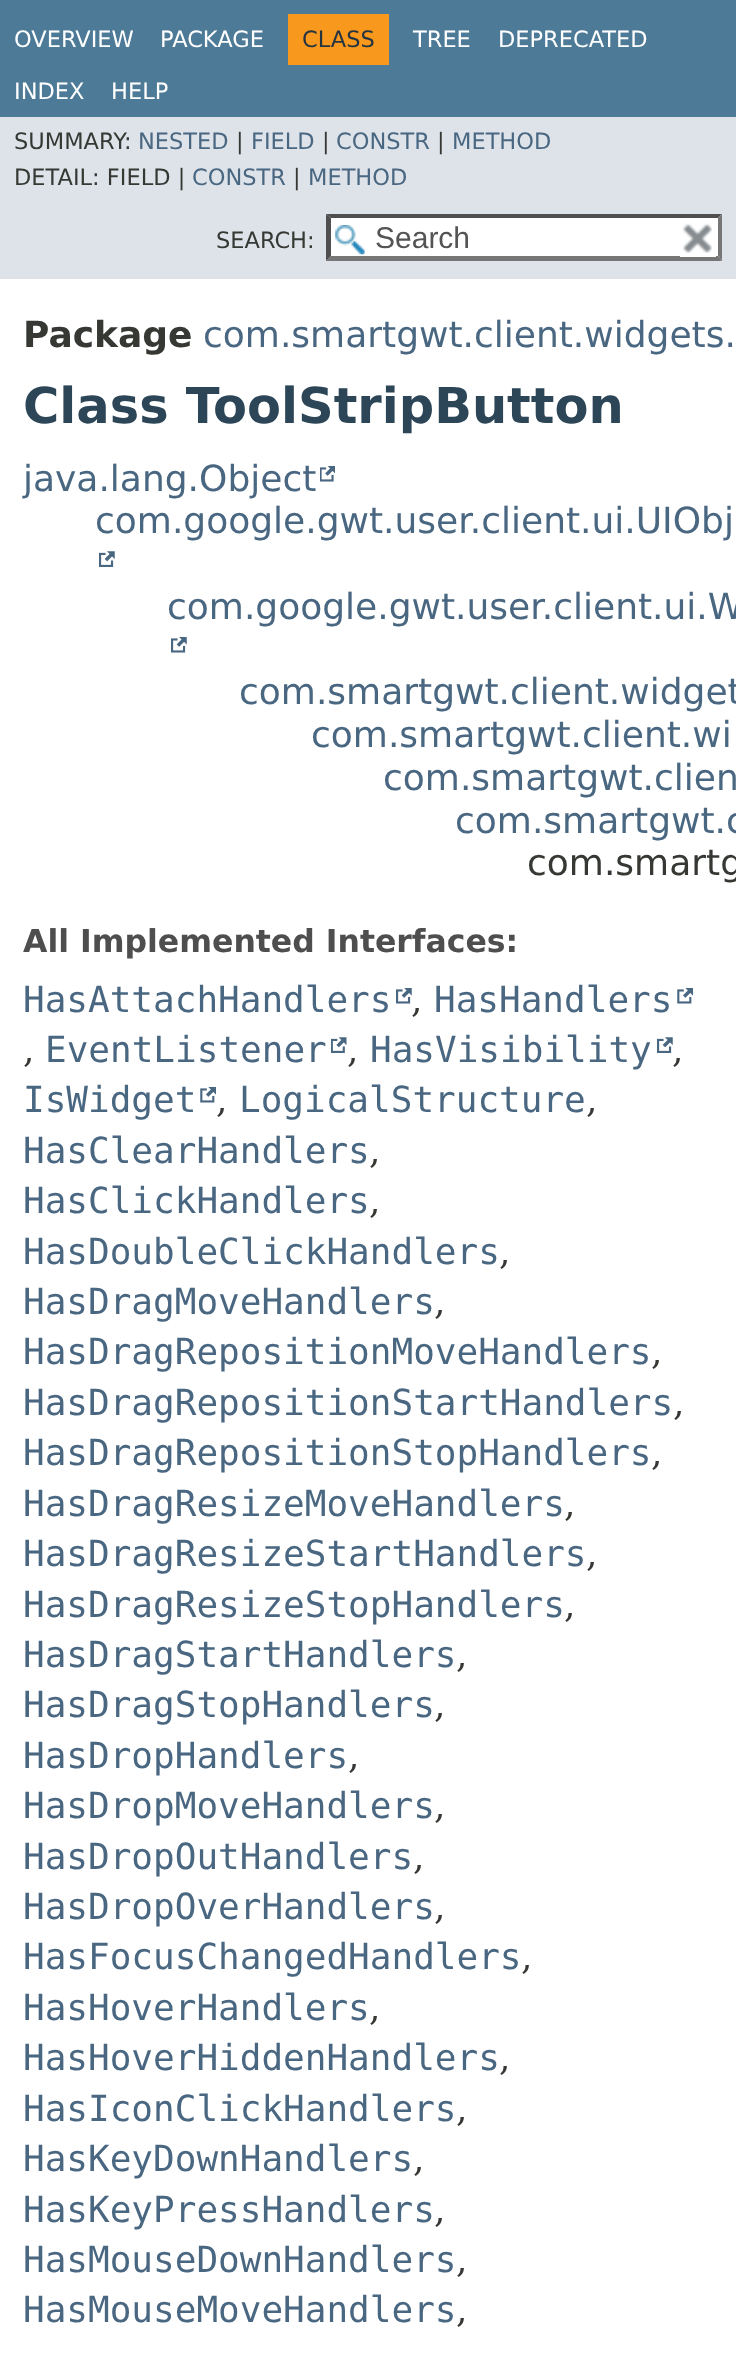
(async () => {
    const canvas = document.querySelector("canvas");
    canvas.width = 736;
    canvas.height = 2353;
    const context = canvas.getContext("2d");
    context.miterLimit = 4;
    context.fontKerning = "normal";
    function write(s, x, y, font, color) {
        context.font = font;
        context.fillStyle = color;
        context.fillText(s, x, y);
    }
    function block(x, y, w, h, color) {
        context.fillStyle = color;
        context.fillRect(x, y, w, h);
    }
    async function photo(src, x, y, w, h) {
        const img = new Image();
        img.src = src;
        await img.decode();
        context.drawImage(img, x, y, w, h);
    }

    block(0, 0, 736, 2353, "rgb(255, 255, 255)");
    block(0, 0, 736, 117, "rgb(77, 122, 151)");
    write("OVERVIEW", 14, 47, "22.5px DejaVu Sans", "rgb(255, 255, 255)");
    write("PACKAGE", 160, 47, "22.5px DejaVu Sans", "rgb(255, 255, 255)");
    block(288, 14, 101, 51, "rgb(248, 152, 29)");
    write("CLASS", 302, 47, "22.5px DejaVu Sans", "rgb(37, 52, 65)");
    write("TREE", 413, 47, "22.5px DejaVu Sans", "rgb(255, 255, 255)");
    write("DEPRECATED", 498, 47, "22.5px DejaVu Sans", "rgb(255, 255, 255)");
    write("INDEX", 14, 99, "22.5px DejaVu Sans", "rgb(255, 255, 255)");
    write("HELP", 111, 99, "22.5px DejaVu Sans", "rgb(255, 255, 255)");
    block(0, 117, 736, 162, "rgb(222, 227, 233)");
    write("SUMMARY:", 14, 149, "22.5px DejaVu Sans", "rgb(53, 56, 51)");
    write("NESTED", 138, 149, "22.5px DejaVu Sans", "rgb(74, 103, 130)");
    write("|", 236, 149, "22.5px DejaVu Sans", "rgb(53, 56, 51)");
    write("FIELD", 251, 149, "22.5px DejaVu Sans", "rgb(74, 103, 130)");
    write("|", 322, 149, "22.5px DejaVu Sans", "rgb(53, 56, 51)");
    write("CONSTR", 336, 149, "22.5px DejaVu Sans", "rgb(74, 103, 130)");
    write("|", 437, 149, "22.5px DejaVu Sans", "rgb(53, 56, 51)");
    write("METHOD", 452, 149, "22.5px DejaVu Sans", "rgb(74, 103, 130)");
    write("DETAIL: FIELD |", 14, 185, "22.5px DejaVu Sans", "rgb(53, 56, 51)");
    write("CONSTR", 192, 185, "22.5px DejaVu Sans", "rgb(74, 103, 130)");
    write("|", 293, 185, "22.5px DejaVu Sans", "rgb(53, 56, 51)");
    write("METHOD", 308, 185, "22.5px DejaVu Sans", "rgb(74, 103, 130)");
    write("SEARCH:", 216, 248, "22.5px DejaVu Sans", "rgb(53, 56, 51)");
    block(326, 214, 396, 47, "rgb(255, 255, 255)");
    await photo("media/1.png", 335, 225, 30, 30);
    context.fillStyle = "rgb(79, 79, 79)";
    context.beginPath();
    context.moveTo(326, 214);
    context.lineTo(722, 214);
    context.lineTo(718, 218);
    context.lineTo(331, 218);
    context.closePath();
    context.fill();
    context.fillStyle = "rgb(118, 118, 118)";
    context.beginPath();
    context.moveTo(722, 214);
    context.lineTo(722, 261);
    context.lineTo(718, 256);
    context.lineTo(718, 218);
    context.closePath();
    context.fill();
    context.beginPath();
    context.moveTo(722, 261);
    context.lineTo(326, 261);
    context.lineTo(331, 256);
    context.lineTo(718, 256);
    context.closePath();
    context.fill();
    context.fillStyle = "rgb(79, 79, 79)";
    context.beginPath();
    context.moveTo(326, 261);
    context.lineTo(326, 214);
    context.lineTo(331, 218);
    context.lineTo(331, 256);
    context.closePath();
    context.fill();
    write("Search", 375, 248, "30px Liberation Sans", "rgb(84, 84, 84)");
    block(680, 256, 36, 1, "rgb(255, 255, 255)");
    await photo("media/2.png", 682, 223, 30, 30);
    write("Package", 23, 347, "bold 36px DejaVu Sans", "rgb(53, 56, 51)");
    write("com.smartgwt.client.widgets.", 203, 347, "36px DejaVu Sans", "rgb(74, 103, 130)");
    write("Class ToolStripButton", 23, 423, "bold 49.5px DejaVu Sans", "rgb(44, 69, 87)");
    write("java.lang.Object", 23, 491, "36px DejaVu Sans", "rgb(74, 103, 130)");
    await photo("media/3.png", 320, 466, 15, 16);
    write("com.google.gwt.user.client.ui.UIObj", 95, 533, "36px DejaVu Sans", "rgb(74, 103, 130)");
    await photo("media/4.png", 99, 551, 16, 16);
    write("com.google.gwt.user.client.ui.W", 167, 619, "36px DejaVu Sans", "rgb(74, 103, 130)");
    await photo("media/5.png", 171, 637, 16, 16);
    write("com.smartgwt.client.widget", 239, 704, "36px DejaVu Sans", "rgb(74, 103, 130)");
    write("com.smartgwt.client.wi", 311, 747, "36px DejaVu Sans", "rgb(74, 103, 130)");
    write("com.smartgwt.clien", 383, 790, "36px DejaVu Sans", "rgb(74, 103, 130)");
    write("com.smartgwt.c", 455, 833, "36px DejaVu Sans", "rgb(74, 103, 130)");
    write("com.smartg", 527, 875, "36px DejaVu Sans", "rgb(53, 56, 51)");
    write("All Implemented Interfaces:", 23, 952, "bold 31.5px DejaVu Sans", "rgb(78, 78, 78)");
    write("HasAttachHandlers", 23, 1012, "36px DejaVu Sans Mono", "rgb(74, 103, 130)");
    await photo("media/5.png", 396, 988, 16, 16);
    write(",", 411, 1012, "36px DejaVu Serif", "rgb(53, 56, 51)");
    write("HasHandlers", 434, 1012, "36px DejaVu Sans Mono", "rgb(74, 103, 130)");
    await photo("media/6.png", 677, 988, 16, 16);
    write(",", 23, 1062, "36px DejaVu Serif", "rgb(53, 56, 51)");
    write("EventListener", 45, 1062, "36px DejaVu Sans Mono", "rgb(74, 103, 130)");
    await photo("media/7.png", 331, 1037, 16, 16);
    write(",", 347, 1062, "36px DejaVu Serif", "rgb(53, 56, 51)");
    write("HasVisibility", 370, 1062, "36px DejaVu Sans Mono", "rgb(74, 103, 130)");
    await photo("media/4.png", 657, 1037, 16, 16);
    write(",", 672, 1062, "36px DejaVu Serif", "rgb(53, 56, 51)");
    write("IsWidget", 23, 1112, "36px DejaVu Sans Mono", "rgb(74, 103, 130)");
    await photo("media/6.png", 200, 1087, 16, 16);
    write(",", 216, 1112, "36px DejaVu Serif", "rgb(53, 56, 51)");
    write("LogicalStructure", 239, 1112, "36px DejaVu Sans Mono", "rgb(74, 103, 130)");
    write(",", 586, 1112, "36px DejaVu Serif", "rgb(53, 56, 51)");
    write("HasClearHandlers", 23, 1163, "36px DejaVu Sans Mono", "rgb(74, 103, 130)");
    write(",", 369, 1163, "36px DejaVu Serif", "rgb(53, 56, 51)");
    write("HasClickHandlers", 23, 1213, "36px DejaVu Sans Mono", "rgb(74, 103, 130)");
    write(",", 369, 1213, "36px DejaVu Serif", "rgb(53, 56, 51)");
    write("HasDoubleClickHandlers", 23, 1264, "36px DejaVu Sans Mono", "rgb(74, 103, 130)");
    write(",", 499, 1264, "36px DejaVu Serif", "rgb(53, 56, 51)");
    write("HasDragMoveHandlers", 23, 1314, "36px DejaVu Sans Mono", "rgb(74, 103, 130)");
    write(",", 434, 1314, "36px DejaVu Serif", "rgb(53, 56, 51)");
    write("HasDragRepositionMoveHandlers", 23, 1364, "36px DejaVu Sans Mono", "rgb(74, 103, 130)");
    write(",", 651, 1364, "36px DejaVu Serif", "rgb(53, 56, 51)");
    write("HasDragRepositionStartHandlers", 23, 1415, "36px DejaVu Sans Mono", "rgb(74, 103, 130)");
    write(",", 673, 1415, "36px DejaVu Serif", "rgb(53, 56, 51)");
    write("HasDragRepositionStopHandlers", 23, 1465, "36px DejaVu Sans Mono", "rgb(74, 103, 130)");
    write(",", 651, 1465, "36px DejaVu Serif", "rgb(53, 56, 51)");
    write("HasDragResizeMoveHandlers", 23, 1516, "36px DejaVu Sans Mono", "rgb(74, 103, 130)");
    write(",", 564, 1516, "36px DejaVu Serif", "rgb(53, 56, 51)");
    write("HasDragResizeStartHandlers", 23, 1566, "36px DejaVu Sans Mono", "rgb(74, 103, 130)");
    write(",", 586, 1566, "36px DejaVu Serif", "rgb(53, 56, 51)");
    write("HasDragResizeStopHandlers", 23, 1617, "36px DejaVu Sans Mono", "rgb(74, 103, 130)");
    write(",", 564, 1617, "36px DejaVu Serif", "rgb(53, 56, 51)");
    write("HasDragStartHandlers", 23, 1667, "36px DejaVu Sans Mono", "rgb(74, 103, 130)");
    write(",", 456, 1667, "36px DejaVu Serif", "rgb(53, 56, 51)");
    write("HasDragStopHandlers", 23, 1717, "36px DejaVu Sans Mono", "rgb(74, 103, 130)");
    write(",", 434, 1717, "36px DejaVu Serif", "rgb(53, 56, 51)");
    write("HasDropHandlers", 23, 1768, "36px DejaVu Sans Mono", "rgb(74, 103, 130)");
    write(",", 348, 1768, "36px DejaVu Serif", "rgb(53, 56, 51)");
    write("HasDropMoveHandlers", 23, 1818, "36px DejaVu Sans Mono", "rgb(74, 103, 130)");
    write(",", 434, 1818, "36px DejaVu Serif", "rgb(53, 56, 51)");
    write("HasDropOutHandlers", 23, 1869, "36px DejaVu Sans Mono", "rgb(74, 103, 130)");
    write(",", 413, 1869, "36px DejaVu Serif", "rgb(53, 56, 51)");
    write("HasDropOverHandlers", 23, 1919, "36px DejaVu Sans Mono", "rgb(74, 103, 130)");
    write(",", 434, 1919, "36px DejaVu Serif", "rgb(53, 56, 51)");
    write("HasFocusChangedHandlers", 23, 1969, "36px DejaVu Sans Mono", "rgb(74, 103, 130)");
    write(",", 521, 1969, "36px DejaVu Serif", "rgb(53, 56, 51)");
    write("HasHoverHandlers", 23, 2020, "36px DejaVu Sans Mono", "rgb(74, 103, 130)");
    write(",", 369, 2020, "36px DejaVu Serif", "rgb(53, 56, 51)");
    write("HasHoverHiddenHandlers", 23, 2070, "36px DejaVu Sans Mono", "rgb(74, 103, 130)");
    write(",", 499, 2070, "36px DejaVu Serif", "rgb(53, 56, 51)");
    write("HasIconClickHandlers", 23, 2121, "36px DejaVu Sans Mono", "rgb(74, 103, 130)");
    write(",", 456, 2121, "36px DejaVu Serif", "rgb(53, 56, 51)");
    write("HasKeyDownHandlers", 23, 2171, "36px DejaVu Sans Mono", "rgb(74, 103, 130)");
    write(",", 413, 2171, "36px DejaVu Serif", "rgb(53, 56, 51)");
    write("HasKeyPressHandlers", 23, 2222, "36px DejaVu Sans Mono", "rgb(74, 103, 130)");
    write(",", 434, 2222, "36px DejaVu Serif", "rgb(53, 56, 51)");
    write("HasMouseDownHandlers", 23, 2272, "36px DejaVu Sans Mono", "rgb(74, 103, 130)");
    write(",", 456, 2272, "36px DejaVu Serif", "rgb(53, 56, 51)");
    write("HasMouseMoveHandlers", 23, 2322, "36px DejaVu Sans Mono", "rgb(74, 103, 130)");
    write(",", 456, 2322, "36px DejaVu Serif", "rgb(53, 56, 51)");
})();
